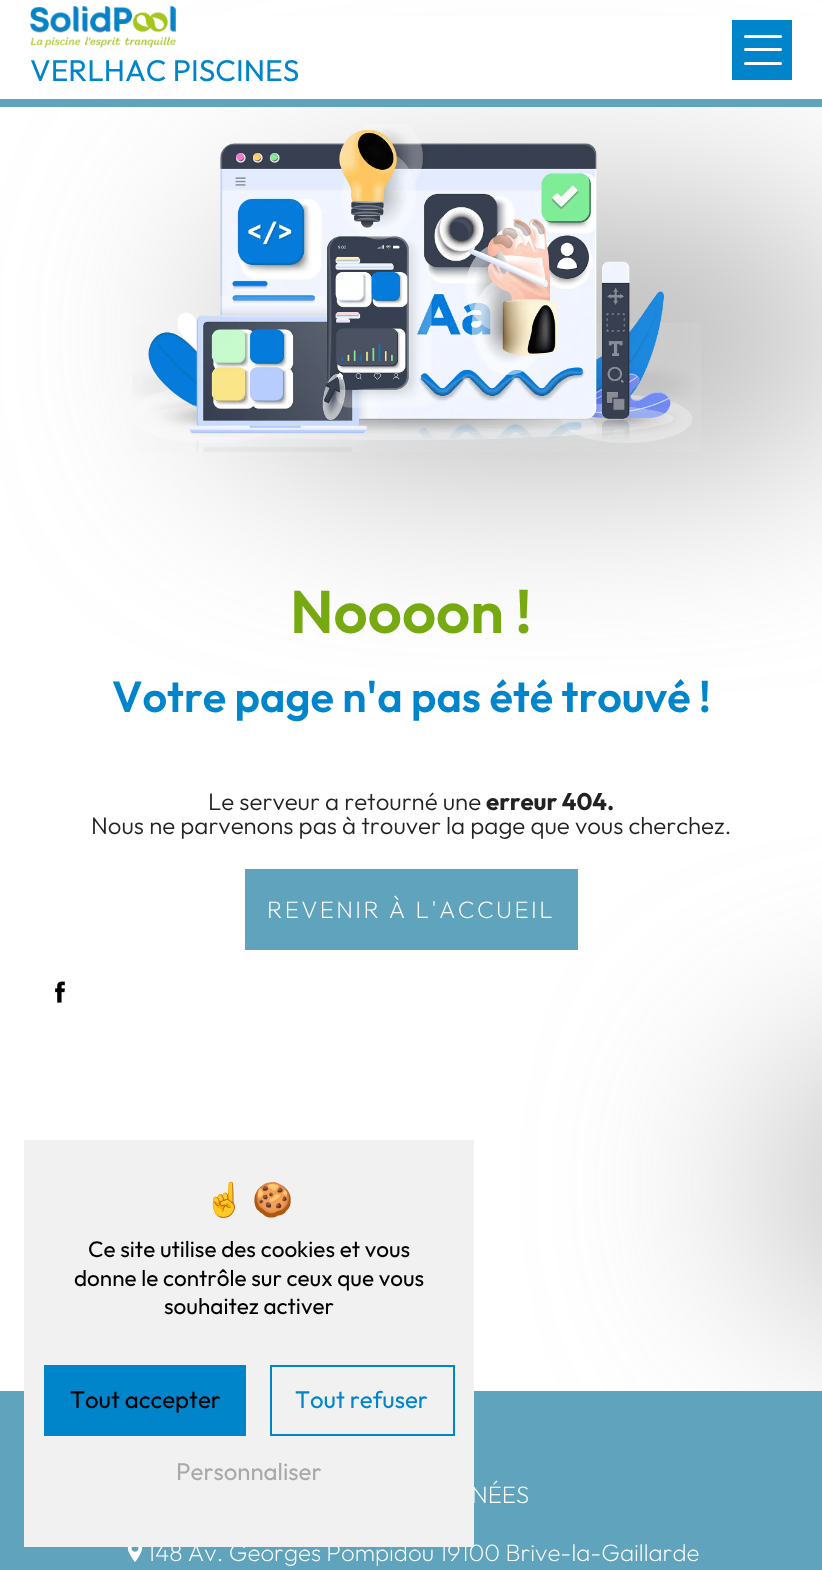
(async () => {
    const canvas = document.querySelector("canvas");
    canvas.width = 822;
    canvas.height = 1570;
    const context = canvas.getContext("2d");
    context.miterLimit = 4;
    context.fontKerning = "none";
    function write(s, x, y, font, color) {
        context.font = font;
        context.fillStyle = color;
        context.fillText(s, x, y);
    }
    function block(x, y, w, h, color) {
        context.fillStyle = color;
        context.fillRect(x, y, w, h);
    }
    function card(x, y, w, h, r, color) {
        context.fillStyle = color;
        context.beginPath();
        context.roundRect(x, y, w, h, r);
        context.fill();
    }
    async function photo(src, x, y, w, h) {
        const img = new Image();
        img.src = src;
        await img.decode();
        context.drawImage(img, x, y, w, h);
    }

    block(0, 0, 822, 1570, "rgb(255, 255, 255)");
    context.fillStyle = "rgb(128, 128, 128)";
    context.filter = "blur(120px)";
    context.beginPath();
    context.roundRect(246, 260, 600, 150, 75);
    context.fill();
    context.filter = "none";
    block(179, 16, 643, 83, "rgb(255, 255, 255)");
    block(0, 99, 822, 8, "rgb(96, 163, 188)");
    await photo("media/1.png", 30, 6, 146, 42);
    write("VERLHAC PISCINES", 30, 81, "30px Outfit", "rgb(0, 133, 202)");
    block(732, 20, 60, 60, "rgb(0, 133, 202)");
    card(744, 48, 38, 3, 1.5, "rgb(255, 255, 255)");
    card(744, 35, 38, 3, 1.5, "rgb(255, 255, 255)");
    card(744, 62, 38, 3, 1.5, "rgb(255, 255, 255)");
    context.fillStyle = "rgb(128, 128, 128)";
    context.filter = "blur(120px)";
    context.beginPath();
    context.roundRect(782, 1109, 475, 150, 75);
    context.fill();
    context.filter = "none";
    await photo("media/2.png", 132, 124, 569, 328);
    write("Noooon !", 290, 633, "600 60px Outfit", "rgb(119, 169, 17)");
    write("Votre page n'a", 112, 712, "600 43.25px Outfit", "rgb(0, 133, 202)");
    write("pas été trouvé !", 411, 712, "600 43.25px Outfit", "rgb(0, 133, 202)");
    write("Le serveur a retourné une", 208, 810, "300 24px Outfit", "rgb(34, 34, 34)");
    write("erreur 404.", 486, 810, "bold 24px Outfit", "rgb(34, 34, 34)");
    write("Nous ne parvenons pas à trouver la page que vous cherchez.", 91, 834, "300 24px Outfit", "rgb(34, 34, 34)");
    block(245, 869, 333, 81, "rgb(96, 163, 188)");
    context.letterSpacing = "2.4px";
    write("REVENIR À L'ACCUEIL", 267, 918, "200 24px Outfit", "rgb(255, 255, 255)");
    await photo("media/3.png", 55, 981, 10, 22);
    block(0, 1391, 822, 179, "rgb(96, 163, 188)");
    context.letterSpacing = "0px";
    write("NÉES", 471, 1503, "200 24px Outfit", "rgb(255, 255, 255)");
    write("148 Av. Georges Pompidou", 147, 1561, "200 24px Outfit", "rgb(255, 255, 255)");
    write("19100 Brive-la-Gaillarde", 439, 1561, "200 24px Outfit", "rgb(255, 255, 255)");
    block(24, 1140, 450, 407, "rgb(241, 241, 241)");
    write("☝", 204, 1211, "33px Noto Color Emoji", "rgb(34, 34, 34)");
    write("🍪", 252, 1211, "33px Noto Color Emoji", "rgb(34, 34, 34)");
    write("Ce site utilise des cookies et vous", 88, 1257, "22.5px Outfit", "rgb(0, 0, 0)");
    write("donne le contrôle sur ceux que vous", 74, 1286, "22.5px Outfit", "rgb(0, 0, 0)");
    write("souhaitez activer", 164, 1314, "22.5px Outfit", "rgb(0, 0, 0)");
    block(44, 1365, 202, 71, "rgb(0, 133, 202)");
    write("Tout accepter", 70, 1408, "24px Outfit", "rgb(0, 0, 0)");
    context.strokeStyle = "rgb(0, 133, 202)";
    context.lineWidth = 2;
    context.strokeRect(271, 1366, 183, 69);
    write("Tout refuser", 295, 1408, "24px Outfit", "rgb(0, 133, 202)");
    write("Personnaliser", 176, 1480, "24px Outfit", "rgb(169, 169, 169)");
    await photo("media/4.png", 127, 1547, 16, 15);
})();
